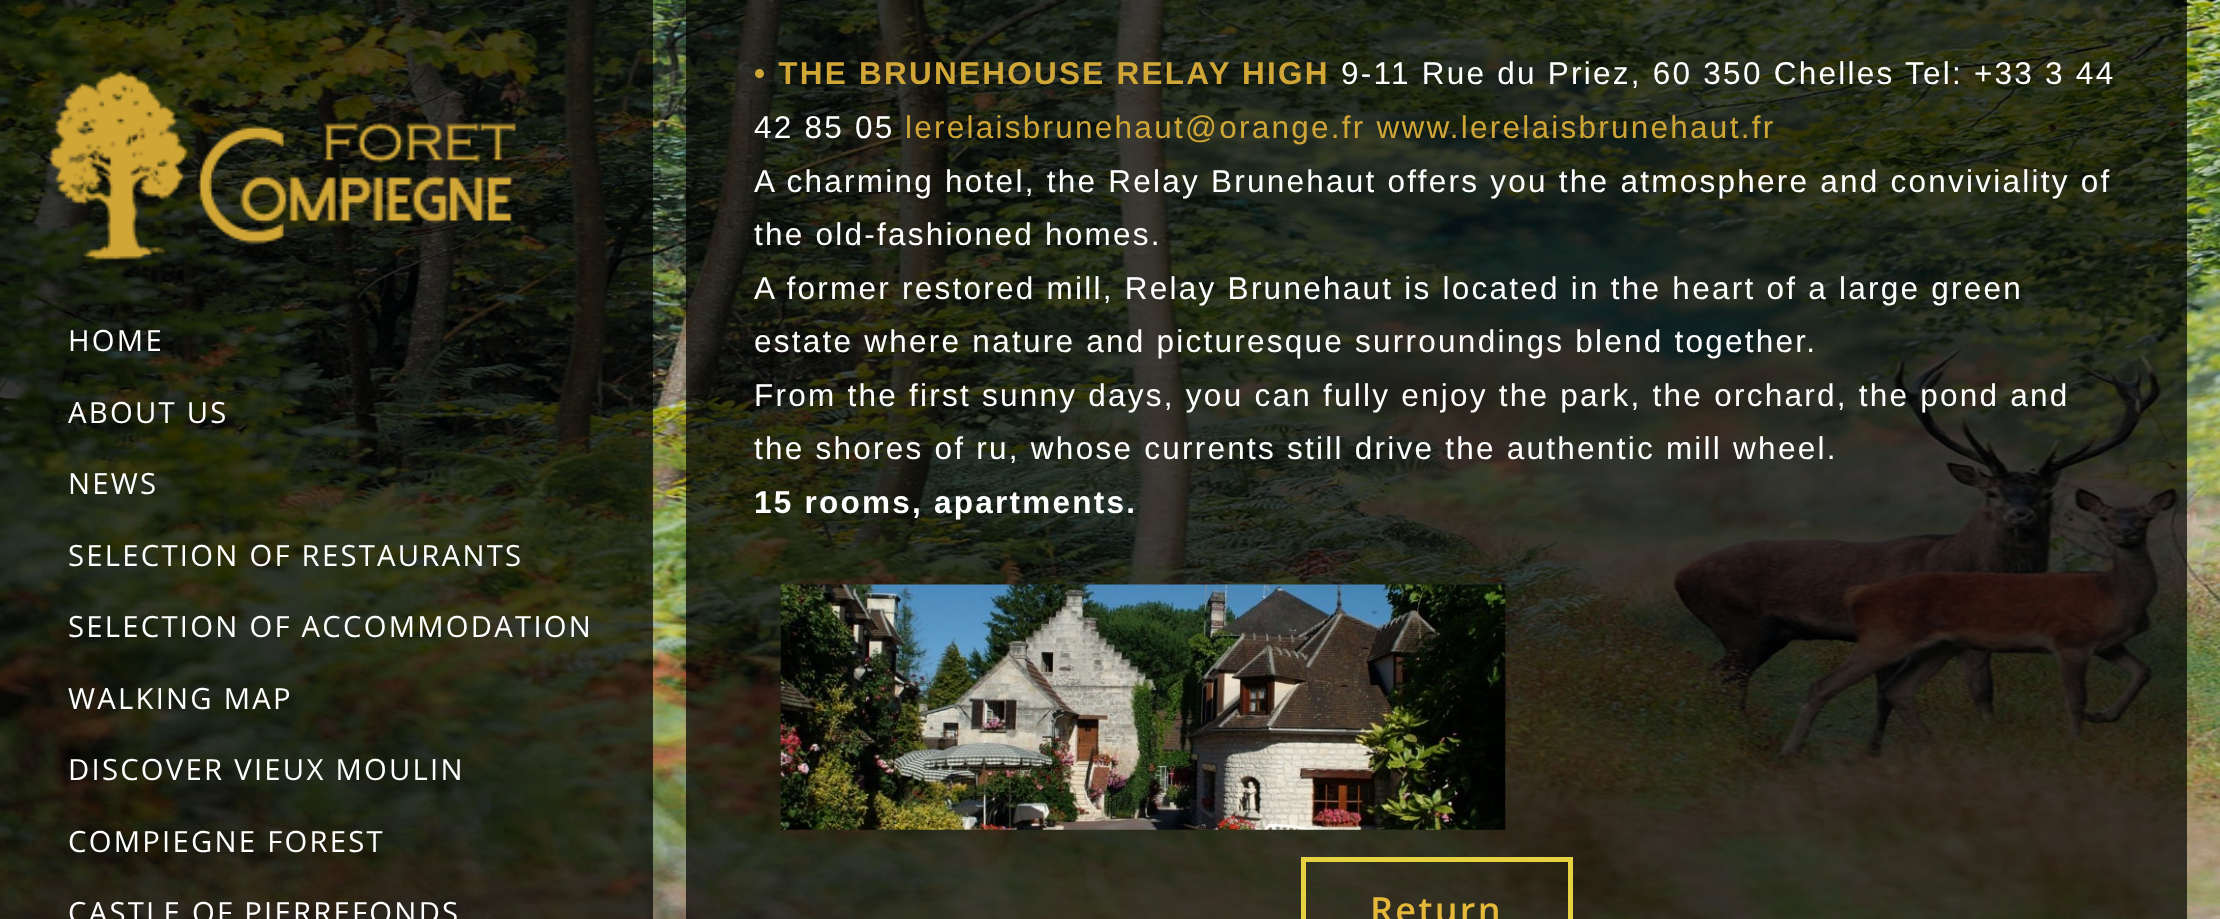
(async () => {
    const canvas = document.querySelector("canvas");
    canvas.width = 2220;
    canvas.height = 919;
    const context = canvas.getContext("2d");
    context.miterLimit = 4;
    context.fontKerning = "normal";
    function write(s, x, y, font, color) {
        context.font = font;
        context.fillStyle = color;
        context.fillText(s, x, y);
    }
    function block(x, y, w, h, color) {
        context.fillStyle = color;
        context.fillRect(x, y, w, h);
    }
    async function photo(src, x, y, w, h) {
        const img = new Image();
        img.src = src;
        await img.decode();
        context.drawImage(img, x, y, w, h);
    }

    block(0, 0, 2220, 919, "rgb(255, 255, 255)");
    await photo("media/1.png", 0, 0, 2220, 919);
    block(0, 0, 653, 919, "rgba(0, 0, 0, 0.7)");
    await photo("media/2.png", 49, 71, 467, 189);
    context.letterSpacing = "2.25px";
    write("HOME", 68, 351, "29.25px Open Sans", "rgb(255, 255, 255)");
    write("ABOUT US", 68, 423, "29.25px Open Sans", "rgb(255, 255, 255)");
    write("NEWS", 68, 494, "29.25px Open Sans", "rgb(255, 255, 255)");
    write("SELECTION OF RESTAURANTS", 68, 566, "29.25px Open Sans", "rgb(255, 255, 255)");
    write("SELECTION OF ACCOMMODATION", 68, 637, "29.25px Open Sans", "rgb(255, 255, 255)");
    write("WALKING MAP", 68, 709, "29.25px Open Sans", "rgb(255, 255, 255)");
    write("DISCOVER VIEUX MOULIN", 68, 780, "29.25px Open Sans", "rgb(255, 255, 255)");
    write("COMPIEGNE FOREST", 68, 852, "29.25px Open Sans", "rgb(255, 255, 255)");
    write("CASTLE OF PIERREFONDS", 68, 923, "29.25px Open Sans", "rgb(255, 255, 255)");
    block(686, 0, 1501, 919, "rgba(0, 0, 0, 0.7)");
    write("• THE BRUNEHOUSE RELAY HIGH", 754, 84, "bold 31.5px Liberation Sans", "rgb(208, 166, 54)");
    write("9-11 Rue du Priez, 60 350 Chelles Tel: +33 3 44", 1341, 84, "31.5px Liberation Sans", "rgb(255, 255, 255)");
    write("42 85 05", 754, 138, "31.5px Liberation Sans", "rgb(255, 255, 255)");
    write("lerelaisbrunehaut@orange.fr www.lerelaisbrunehaut.fr", 905, 138, "31.5px Liberation Sans", "rgb(208, 166, 54)");
    write("A charming hotel, the Relay Brunehaut offers you the atmosphere and conviviality of", 754, 192, "31.5px Liberation Sans", "rgb(255, 255, 255)");
    write("the old-fashioned homes.", 754, 245, "31.5px Liberation Sans", "rgb(255, 255, 255)");
    write("A former restored mill, Relay Brunehaut is located in the heart of a large green", 754, 299, "31.5px Liberation Sans", "rgb(255, 255, 255)");
    write("estate where nature and picturesque surroundings blend together.", 754, 352, "31.5px Liberation Sans", "rgb(255, 255, 255)");
    write("From the first sunny days, you can fully enjoy the park, the orchard, the pond and", 754, 406, "31.5px Liberation Sans", "rgb(255, 255, 255)");
    write("the shores of ru, whose currents still drive the authentic mill wheel.", 754, 459, "31.5px Liberation Sans", "rgb(255, 255, 255)");
    write("15 rooms, apartments.", 754, 513, "bold 31.5px Liberation Sans", "rgb(255, 255, 255)");
    await photo("media/3.png", 780, 584, 726, 246);
    context.strokeStyle = "rgb(230, 209, 64)";
    context.lineWidth = 5;
    context.strokeRect(1303.5, 859.5, 267, 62);
    write("Return", 1370, 923, "600 36px Open Sans", "rgb(229, 184, 58)");
})();
